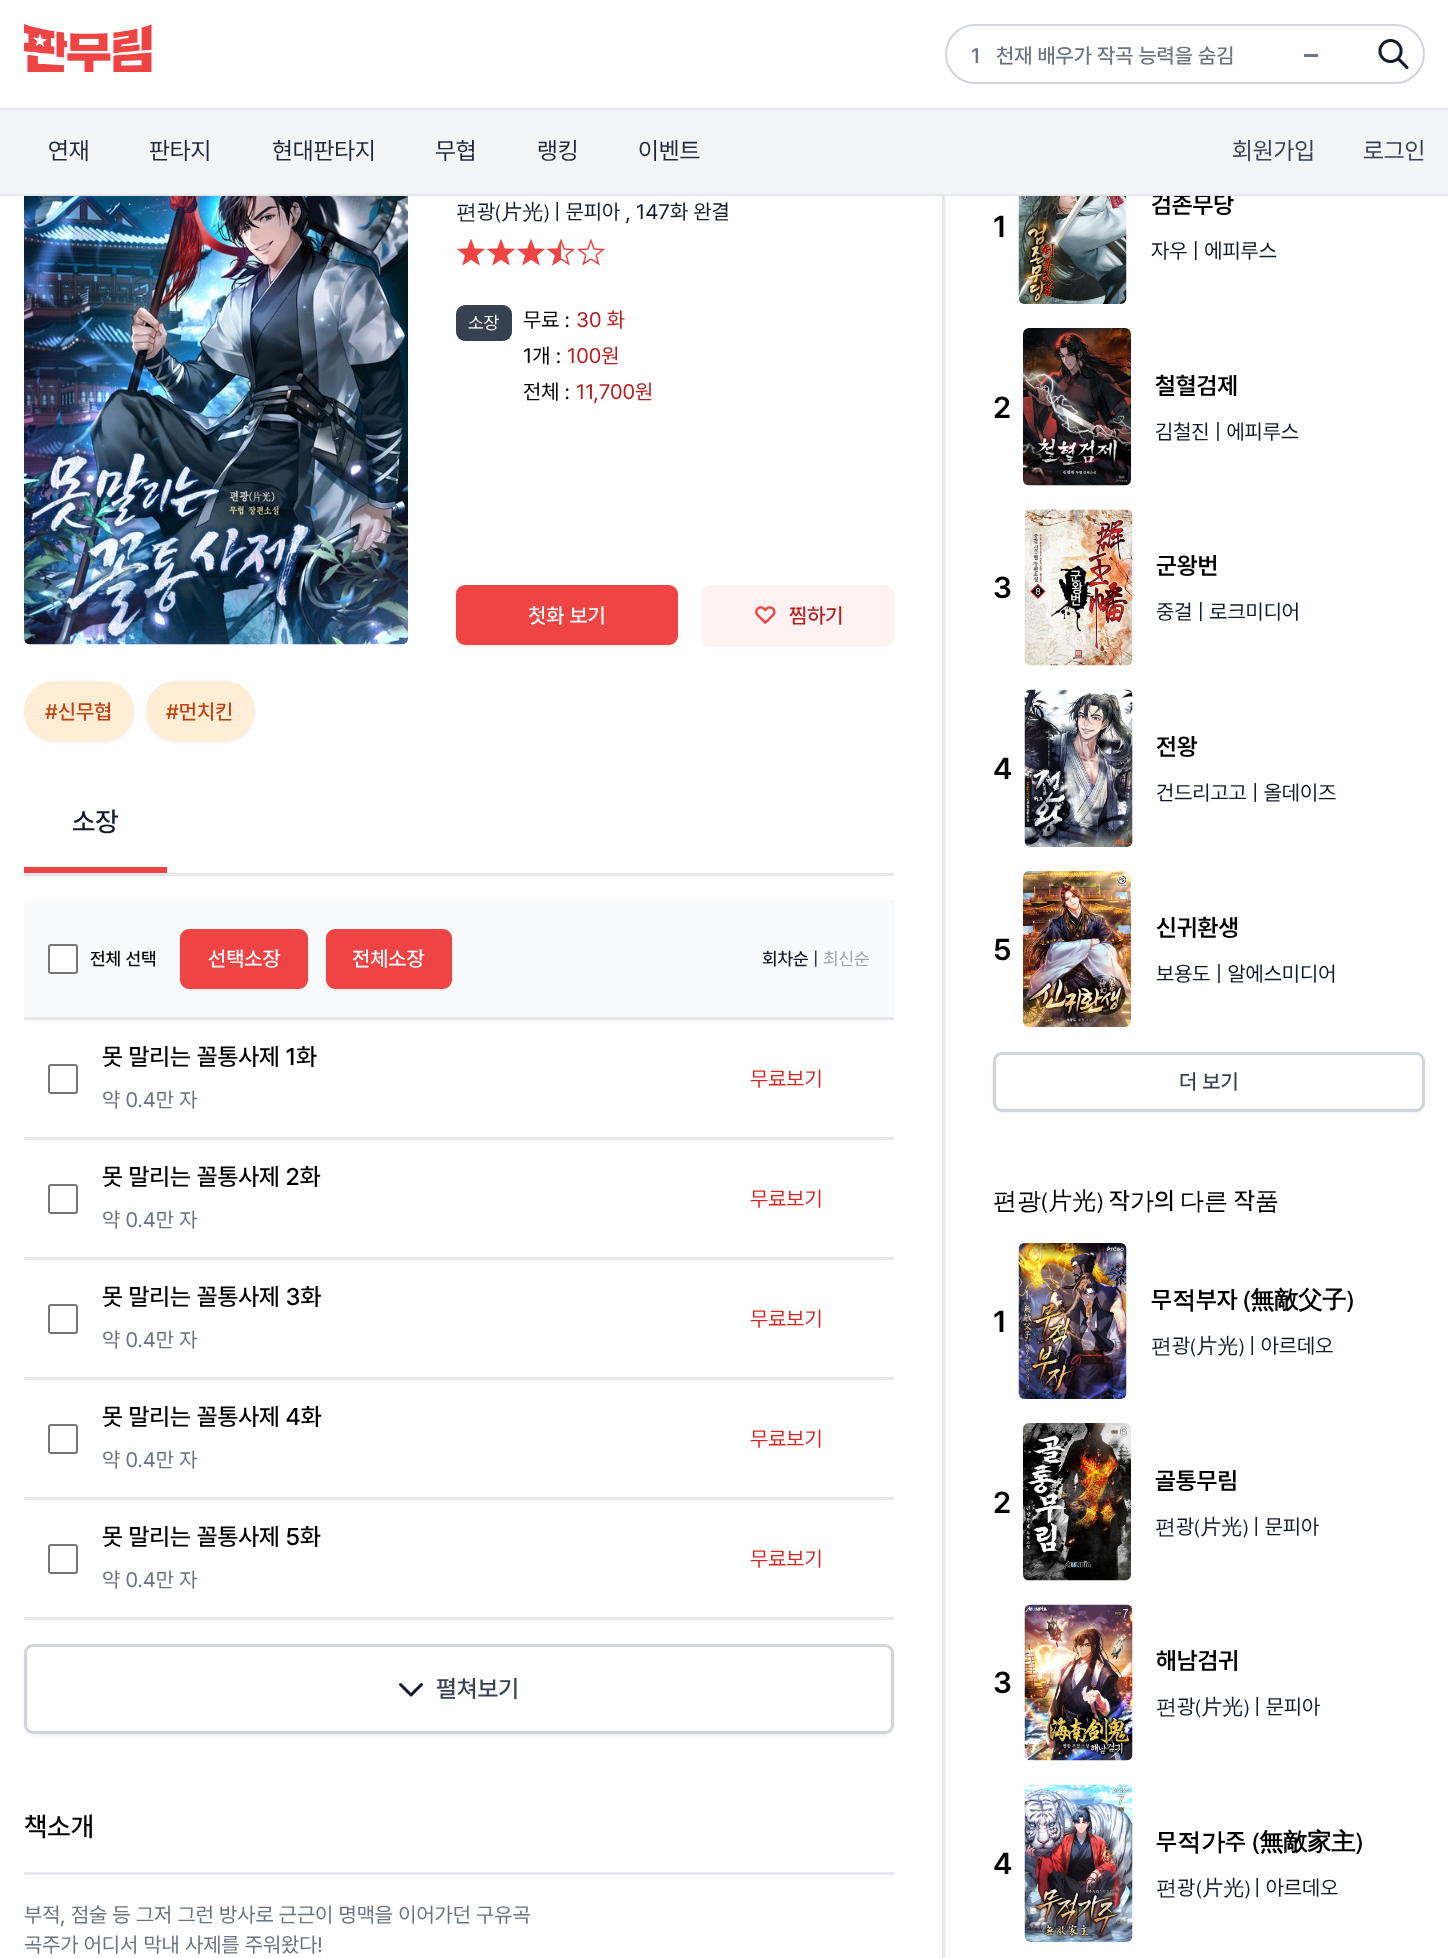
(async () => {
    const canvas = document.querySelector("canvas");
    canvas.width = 1448;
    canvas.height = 1958;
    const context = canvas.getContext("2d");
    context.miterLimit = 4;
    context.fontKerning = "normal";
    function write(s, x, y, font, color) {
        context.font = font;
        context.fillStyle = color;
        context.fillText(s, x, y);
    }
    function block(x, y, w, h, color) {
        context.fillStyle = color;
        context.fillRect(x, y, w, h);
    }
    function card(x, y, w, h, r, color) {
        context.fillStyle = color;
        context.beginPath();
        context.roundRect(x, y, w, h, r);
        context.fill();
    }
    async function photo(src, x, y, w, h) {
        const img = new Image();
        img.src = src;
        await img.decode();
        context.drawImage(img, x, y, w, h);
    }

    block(0, 0, 1448, 1958, "rgb(255, 255, 255)");
    await photo("media/1.png", 24, 24, 128, 48);
    await photo("media/2.png", 1378, 39, 31, 30);
    context.beginPath();
    context.roundRect(946, 25, 478, 58, 29);
    context.strokeStyle = "rgb(209, 213, 219)";
    context.lineWidth = 2;
    context.stroke();
    write("1", 971, 63, "500 21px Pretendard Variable", "rgb(107, 114, 128)");
    write("천재 배우가 작곡 능력을 숨김", 996, 63, "500 21px Pretendard Variable", "rgb(107, 114, 128)");
    block(1304, 54, 14, 3, "rgb(110, 117, 131)");
    write("검존무당", 1151, 213, "600 24px Pretendard Variable", "rgb(0, 0, 0)");
    block(0, 110, 1448, 84, "rgb(243, 244, 246)");
    block(0, 108, 1448, 2, "rgb(229, 231, 235)");
    block(0, 194, 1448, 2, "rgb(229, 231, 235)");
    write("연재", 48, 159, "24px Pretendard Variable", "rgb(31, 41, 55)");
    write("판타지", 149, 159, "24px Pretendard Variable", "rgb(31, 41, 55)");
    write("현대판타지", 272, 159, "24px Pretendard Variable", "rgb(31, 41, 55)");
    write("무협", 435, 159, "24px Pretendard Variable", "rgb(31, 41, 55)");
    write("랭킹", 537, 159, "24px Pretendard Variable", "rgb(31, 41, 55)");
    write("이벤트", 638, 159, "24px Pretendard Variable", "rgb(31, 41, 55)");
    write("회원가입", 1232, 159, "24px Pretendard Variable", "rgb(55, 65, 81)");
    write("로그인", 1363, 159, "24px Pretendard Variable", "rgb(55, 65, 81)");
    block(942, 196, 3, 1762, "rgb(229, 231, 235)");
    await photo("media/3.png", 24, 196, 384, 449);
    write("편", 456, 219, "500 21px WenQuanYi Zen Hei", "rgb(17, 24, 39)");
    write("광", 477, 219, "21px Pretendard Variable", "rgb(17, 24, 39)");
    write("(片光)", 495, 219, "500 21px WenQuanYi Zen Hei", "rgb(17, 24, 39)");
    write("| 문피아 , 147화 완결", 554, 219, "21px Pretendard Variable", "rgb(17, 24, 39)");
    await photo("media/4.png", 456, 239, 30, 27);
    await photo("media/4.png", 486, 239, 30, 27);
    await photo("media/4.png", 516, 239, 30, 27);
    await photo("media/5.png", 546, 239, 30, 27);
    await photo("media/6.png", 576, 239, 30, 27);
    card(456, 305, 56, 36, 9, "rgb(55, 65, 81)");
    write("소장", 468, 329, "18px Pretendard Variable", "rgb(255, 255, 255)");
    write("무료 :", 523, 327, "21px Pretendard Variable", "rgb(0, 0, 0)");
    write("30 화", 576, 327, "21px Pretendard Variable", "rgb(185, 28, 28)");
    write("1개 :", 523, 363, "21px Pretendard Variable", "rgb(0, 0, 0)");
    write("100원", 567, 363, "21px Pretendard Variable", "rgb(185, 28, 28)");
    write("전체 :", 523, 399, "21px Pretendard Variable", "rgb(0, 0, 0)");
    write("11,700원", 576, 399, "21px Pretendard Variable", "rgb(185, 28, 28)");
    context.fillStyle = "rgba(0, 0, 0, 0.05)";
    context.filter = "blur(1.5px)";
    context.beginPath();
    context.roundRect(456, 587, 222, 60, 9);
    context.fill();
    context.filter = "none";
    context.fillStyle = "rgb(239, 68, 68)";
    context.beginPath();
    context.roundRect(457.5, 586.5, 219, 57, 7.5);
    context.fill();
    context.strokeStyle = "rgb(239, 68, 68)";
    context.lineWidth = 3;
    context.stroke();
    write("첫화 보기", 528, 623, "500 21px Pretendard Variable", "rgb(255, 255, 255)");
    context.fillStyle = "rgba(0, 0, 0, 0.05)";
    context.filter = "blur(1.5px)";
    context.beginPath();
    context.roundRect(702, 587, 192, 60, 9);
    context.fill();
    context.filter = "none";
    context.fillStyle = "rgb(254, 242, 242)";
    context.beginPath();
    context.roundRect(703.5, 586.5, 189, 57, 7.5);
    context.fill();
    context.strokeStyle = "rgb(254, 242, 242)";
    context.stroke();
    await photo("media/7.png", 755, 606, 21, 18);
    write("찜하기", 789, 623, "500 21px Pretendard Variable", "rgb(185, 28, 28)");
    context.fillStyle = "rgba(0, 0, 0, 0.05)";
    context.filter = "blur(1.5px)";
    context.beginPath();
    context.roundRect(24, 683, 110, 60, 30);
    context.fill();
    context.filter = "none";
    context.fillStyle = "rgb(255, 237, 213)";
    context.beginPath();
    context.roundRect(25.5, 682.5, 107, 57, 28.5);
    context.fill();
    context.strokeStyle = "rgb(255, 237, 213)";
    context.stroke();
    write("#신무협", 45, 719, "500 21px Pretendard Variable", "rgb(194, 65, 12)");
    context.fillStyle = "rgba(0, 0, 0, 0.05)";
    context.filter = "blur(1.5px)";
    context.beginPath();
    context.roundRect(146, 683, 109, 60, 30);
    context.fill();
    context.filter = "none";
    context.fillStyle = "rgb(255, 237, 213)";
    context.beginPath();
    context.roundRect(147.5, 682.5, 106, 57, 28.5);
    context.fill();
    context.stroke();
    write("#먼치킨", 166, 719, "500 21px Pretendard Variable", "rgb(194, 65, 12)");
    block(24, 873, 870, 3, "rgb(229, 231, 235)");
    block(24, 867, 143, 6, "rgb(239, 68, 68)");
    write("소장", 72, 831, "500 27px Pretendard Variable", "rgb(17, 24, 39)");
    block(24, 900, 870, 117, "rgb(249, 250, 251)");
    block(24, 1017, 870, 3, "rgb(229, 231, 235)");
    context.fillStyle = "rgb(255, 255, 255)";
    context.beginPath();
    context.roundRect(49, 945, 28, 28, 2);
    context.fill();
    context.strokeStyle = "rgb(118, 118, 118)";
    context.lineWidth = 2;
    context.stroke();
    write("전체 선택", 90, 965, "500 18px Pretendard Variable", "rgb(0, 0, 0)");
    context.fillStyle = "rgba(0, 0, 0, 0.05)";
    context.filter = "blur(1.5px)";
    context.beginPath();
    context.roundRect(180, 930, 128, 60, 9);
    context.fill();
    context.filter = "none";
    context.fillStyle = "rgb(239, 68, 68)";
    context.beginPath();
    context.roundRect(181.5, 930.5, 125, 57, 7.5);
    context.fill();
    context.strokeStyle = "rgb(239, 68, 68)";
    context.lineWidth = 3;
    context.stroke();
    write("선택소장", 208, 966, "500 21px Pretendard Variable", "rgb(255, 255, 255)");
    context.fillStyle = "rgba(0, 0, 0, 0.05)";
    context.filter = "blur(1.5px)";
    context.beginPath();
    context.roundRect(326, 930, 126, 60, 9);
    context.fill();
    context.filter = "none";
    context.fillStyle = "rgb(239, 68, 68)";
    context.beginPath();
    context.roundRect(327.5, 930.5, 123, 57, 7.5);
    context.fill();
    context.stroke();
    write("전체소장", 352, 966, "500 21px Pretendard Variable", "rgb(255, 255, 255)");
    write("회차순", 762, 965, "500 18px Pretendard Variable", "rgb(17, 24, 39)");
    write("|", 813, 965, "18px Pretendard Variable", "rgb(17, 24, 39)");
    write("최신순", 823, 965, "18px Pretendard Variable", "rgb(156, 163, 175)");
    block(24, 1137, 870, 3, "rgb(229, 231, 235)");
    context.beginPath();
    context.roundRect(49, 1065, 28, 28, 2);
    context.strokeStyle = "rgb(118, 118, 118)";
    context.lineWidth = 2;
    context.stroke();
    write("못 말리는 꼴통사제 1화", 102, 1065, "500 24px Pretendard Variable", "rgb(0, 0, 0)");
    write("약 0.4만 자", 102, 1107, "21px Pretendard Variable", "rgb(107, 114, 128)");
    write("무료보기", 750, 1086, "21px Pretendard Variable", "rgb(220, 38, 38)");
    block(24, 1257, 870, 3, "rgb(229, 231, 235)");
    context.beginPath();
    context.roundRect(49, 1185, 28, 28, 2);
    context.stroke();
    write("못 말리는 꼴통사제 2화", 102, 1185, "500 24px Pretendard Variable", "rgb(0, 0, 0)");
    write("약 0.4만 자", 102, 1227, "21px Pretendard Variable", "rgb(107, 114, 128)");
    write("무료보기", 750, 1206, "21px Pretendard Variable", "rgb(220, 38, 38)");
    block(24, 1377, 870, 3, "rgb(229, 231, 235)");
    context.beginPath();
    context.roundRect(49, 1305, 28, 28, 2);
    context.stroke();
    write("못 말리는 꼴통사제 3화", 102, 1305, "500 24px Pretendard Variable", "rgb(0, 0, 0)");
    write("약 0.4만 자", 102, 1347, "21px Pretendard Variable", "rgb(107, 114, 128)");
    write("무료보기", 750, 1326, "21px Pretendard Variable", "rgb(220, 38, 38)");
    block(24, 1497, 870, 3, "rgb(229, 231, 235)");
    context.beginPath();
    context.roundRect(49, 1425, 28, 28, 2);
    context.stroke();
    write("못 말리는 꼴통사제 4화", 102, 1425, "500 24px Pretendard Variable", "rgb(0, 0, 0)");
    write("약 0.4만 자", 102, 1467, "21px Pretendard Variable", "rgb(107, 114, 128)");
    write("무료보기", 750, 1446, "21px Pretendard Variable", "rgb(220, 38, 38)");
    block(24, 1617, 870, 3, "rgb(229, 231, 235)");
    context.beginPath();
    context.roundRect(49, 1545, 28, 28, 2);
    context.stroke();
    write("못 말리는 꼴통사제 5화", 102, 1545, "500 24px Pretendard Variable", "rgb(0, 0, 0)");
    write("약 0.4만 자", 102, 1587, "21px Pretendard Variable", "rgb(107, 114, 128)");
    write("무료보기", 750, 1566, "21px Pretendard Variable", "rgb(220, 38, 38)");
    context.fillStyle = "rgba(0, 0, 0, 0.05)";
    context.filter = "blur(1.5px)";
    context.beginPath();
    context.roundRect(24, 1646, 870, 90, 9);
    context.fill();
    context.filter = "none";
    context.fillStyle = "rgb(255, 255, 255)";
    context.beginPath();
    context.roundRect(25.5, 1645.5, 867, 87, 7.5);
    context.fill();
    context.strokeStyle = "rgb(209, 213, 219)";
    context.lineWidth = 3;
    context.stroke();
    context.beginPath();
    context.moveTo(421.5, 1684.5);
    context.lineTo(411, 1695);
    context.lineTo(400.5, 1684.5);
    context.strokeStyle = "rgb(17, 24, 39)";
    context.lineCap = "round";
    context.lineJoin = "round";
    context.stroke();
    write("펼쳐보기", 436, 1697, "500 24px Pretendard Variable", "rgb(55, 65, 81)");
    block(24, 1872, 870, 3, "rgb(229, 231, 235)");
    write("책소개", 24, 1836, "500 27px Pretendard Variable", "rgb(0, 0, 0)");
    write("부적, 점술 등 그저 그런 방사로 근근이 명맥을 이어가던 구유곡", 24, 1922, "21px Pretendard Variable", "rgb(107, 114, 128)");
    write("곡주가 어디서 막내 사제를 주워왔다!", 24, 1952, "21px Pretendard Variable", "rgb(107, 114, 128)");
    write("1", 993, 237, "600 30px Pretendard Variable", "rgb(0, 0, 0)");
    await photo("media/8.png", 1018, 196, 109, 108);
    write("자우 | 에피루스", 1151, 258, "21px Pretendard Variable", "rgb(17, 24, 39)");
    write("2", 993, 418, "600 30px Pretendard Variable", "rgb(0, 0, 0)");
    await photo("media/9.png", 1023, 328, 108, 158);
    write("철혈검제", 1155, 394, "600 24px Pretendard Variable", "rgb(0, 0, 0)");
    write("김철진 | 에피루스", 1155, 439, "21px Pretendard Variable", "rgb(17, 24, 39)");
    write("3", 993, 598, "600 30px Pretendard Variable", "rgb(0, 0, 0)");
    await photo("media/10.png", 1024, 509, 109, 157);
    write("군왕번", 1156, 574, "600 24px Pretendard Variable", "rgb(0, 0, 0)");
    write("중걸 | 로크미디어", 1156, 619, "21px Pretendard Variable", "rgb(17, 24, 39)");
    write("4", 993, 779, "600 30px Pretendard Variable", "rgb(0, 0, 0)");
    await photo("media/11.png", 1024, 689, 109, 158);
    write("전왕", 1156, 755, "600 24px Pretendard Variable", "rgb(0, 0, 0)");
    write("건드리고고 | 올데이즈", 1156, 800, "21px Pretendard Variable", "rgb(17, 24, 39)");
    write("5", 993, 960, "600 30px Pretendard Variable", "rgb(0, 0, 0)");
    await photo("media/12.png", 1023, 871, 108, 156);
    write("신귀환생", 1156, 936, "600 24px Pretendard Variable", "rgb(0, 0, 0)");
    write("보용도 | 알에스미디어", 1156, 981, "21px Pretendard Variable", "rgb(17, 24, 39)");
    context.fillStyle = "rgba(0, 0, 0, 0.05)";
    context.filter = "blur(1.5px)";
    context.beginPath();
    context.roundRect(993, 1053, 432, 60, 9);
    context.fill();
    context.filter = "none";
    context.fillStyle = "rgb(255, 255, 255)";
    context.beginPath();
    context.roundRect(994.5, 1053.5, 429, 57, 7.5);
    context.fill();
    context.strokeStyle = "rgb(209, 213, 219)";
    context.lineJoin = "miter";
    context.stroke();
    write("더 보기", 1179, 1089, "500 21px Pretendard Variable", "rgb(55, 65, 81)");
    write("편광(片光)", 993, 1209, "500 24px WenQuanYi Zen Hei", "rgb(0, 0, 0)");
    write("작", 1109, 1209, "500 24px Pretendard Variable", "rgb(0, 0, 0)");
    write("가", 1130, 1209, "500 24px WenQuanYi Zen Hei", "rgb(0, 0, 0)");
    write("의", 1154, 1209, "500 24px Pretendard Variable", "rgb(0, 0, 0)");
    write("다른", 1180, 1209, "500 24px WenQuanYi Zen Hei", "rgb(0, 0, 0)");
    write("작", 1234, 1209, "500 24px Pretendard Variable", "rgb(0, 0, 0)");
    write("품", 1255, 1209, "500 24px WenQuanYi Zen Hei", "rgb(0, 0, 0)");
    write("1", 993, 1332, "600 30px Pretendard Variable", "rgb(0, 0, 0)");
    await photo("media/13.png", 1018, 1243, 109, 156);
    write("무", 1151, 1308, "600 24px Pretendard Variable", "rgb(0, 0, 0)");
    write("적", 1172, 1308, "bold 24px WenQuanYi Zen Hei", "rgb(0, 0, 0)");
    write("부자", 1196, 1308, "600 24px Pretendard Variable", "rgb(0, 0, 0)");
    write("(無敵父子)", 1243, 1308, "bold 24px WenQuanYi Zen Hei", "rgb(0, 0, 0)");
    write("편", 1151, 1353, "500 21px WenQuanYi Zen Hei", "rgb(17, 24, 39)");
    write("광", 1172, 1353, "21px Pretendard Variable", "rgb(17, 24, 39)");
    write("(片光)", 1190, 1353, "500 21px WenQuanYi Zen Hei", "rgb(17, 24, 39)");
    write("| 아르데오", 1249, 1353, "21px Pretendard Variable", "rgb(17, 24, 39)");
    write("2", 993, 1513, "600 30px Pretendard Variable", "rgb(0, 0, 0)");
    await photo("media/14.png", 1023, 1423, 108, 158);
    write("골통무림", 1155, 1489, "600 24px Pretendard Variable", "rgb(0, 0, 0)");
    write("편", 1155, 1534, "500 21px WenQuanYi Zen Hei", "rgb(17, 24, 39)");
    write("광", 1176, 1534, "21px Pretendard Variable", "rgb(17, 24, 39)");
    write("(片光)", 1194, 1534, "500 21px WenQuanYi Zen Hei", "rgb(17, 24, 39)");
    write("| 문피아", 1253, 1534, "21px Pretendard Variable", "rgb(17, 24, 39)");
    write("3", 993, 1693, "600 30px Pretendard Variable", "rgb(0, 0, 0)");
    await photo("media/15.png", 1024, 1604, 109, 157);
    write("해남검귀", 1156, 1669, "600 24px Pretendard Variable", "rgb(0, 0, 0)");
    write("편", 1156, 1714, "500 21px WenQuanYi Zen Hei", "rgb(17, 24, 39)");
    write("광", 1177, 1714, "21px Pretendard Variable", "rgb(17, 24, 39)");
    write("(片光)", 1195, 1714, "500 21px WenQuanYi Zen Hei", "rgb(17, 24, 39)");
    write("| 문피아", 1254, 1714, "21px Pretendard Variable", "rgb(17, 24, 39)");
    write("4", 993, 1874, "600 30px Pretendard Variable", "rgb(0, 0, 0)");
    await photo("media/16.png", 1024, 1784, 109, 158);
    write("무", 1156, 1850, "600 24px Pretendard Variable", "rgb(0, 0, 0)");
    write("적가", 1177, 1850, "bold 24px WenQuanYi Zen Hei", "rgb(0, 0, 0)");
    write("주", 1225, 1850, "600 24px Pretendard Variable", "rgb(0, 0, 0)");
    write("(無敵家主)", 1252, 1850, "bold 24px WenQuanYi Zen Hei", "rgb(0, 0, 0)");
    write("편", 1156, 1895, "500 21px WenQuanYi Zen Hei", "rgb(17, 24, 39)");
    write("광", 1177, 1895, "21px Pretendard Variable", "rgb(17, 24, 39)");
    write("(片光)", 1196, 1895, "500 21px WenQuanYi Zen Hei", "rgb(17, 24, 39)");
    write("| 아르데오", 1254, 1895, "21px Pretendard Variable", "rgb(17, 24, 39)");
})();
